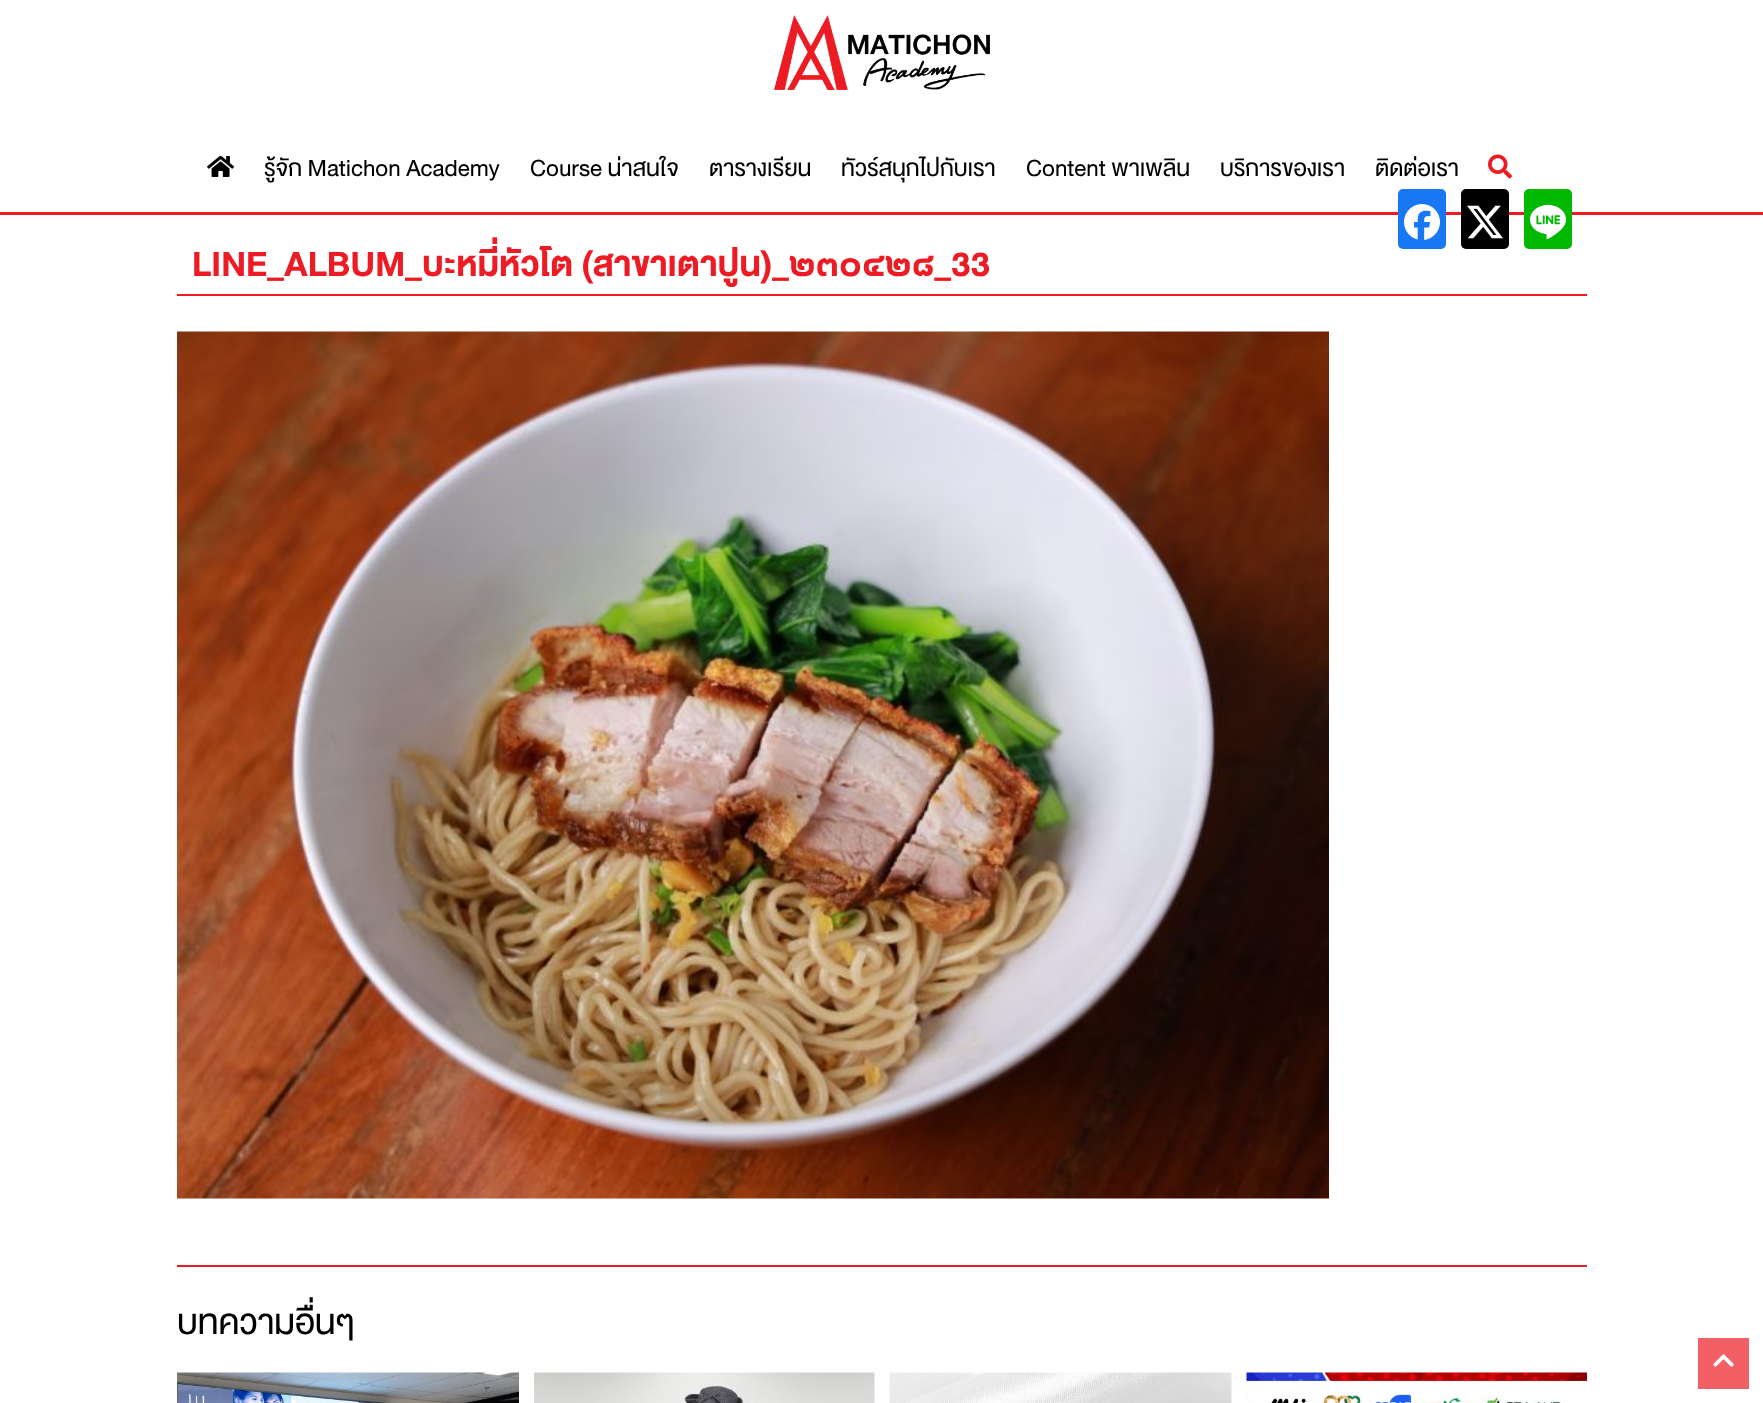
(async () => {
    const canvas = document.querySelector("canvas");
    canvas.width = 1763;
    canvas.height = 1403;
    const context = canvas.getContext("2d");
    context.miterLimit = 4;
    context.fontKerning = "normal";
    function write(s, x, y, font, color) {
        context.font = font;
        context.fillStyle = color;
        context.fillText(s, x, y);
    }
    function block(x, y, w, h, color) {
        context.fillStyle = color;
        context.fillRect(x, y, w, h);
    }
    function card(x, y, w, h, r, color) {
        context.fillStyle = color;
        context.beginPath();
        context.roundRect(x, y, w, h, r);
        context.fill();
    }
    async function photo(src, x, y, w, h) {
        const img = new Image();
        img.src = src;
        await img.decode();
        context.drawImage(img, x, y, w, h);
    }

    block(0, 0, 1763, 1403, "rgb(255, 255, 255)");
    block(0, 212, 1763, 3, "rgb(237, 28, 36)");
    await photo("media/1.png", 774, 15, 216, 75);
    await photo("media/2.png", 207, 156, 27, 21);
    write("รู้จัก Matichon Academy", 264, 176, "24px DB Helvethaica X", "rgb(0, 0, 0)");
    write("Course น่าสนใจ", 530, 176, "24px DB Helvethaica X", "rgb(0, 0, 0)");
    write("ตารางเรียน", 709, 176, "24px DB Helvethaica X", "rgb(0, 0, 0)");
    write("ทัวร์สนุกไปกับเรา", 841, 176, "24px DB Helvethaica X", "rgb(0, 0, 0)");
    write("Content พาเพลิน", 1026, 176, "24px DB Helvethaica X", "rgb(0, 0, 0)");
    write("บริการของเรา", 1220, 176, "24px DB Helvethaica X", "rgb(0, 0, 0)");
    write("ติดต่อเรา", 1375, 176, "24px DB Helvethaica X", "rgb(0, 0, 0)");
    await photo("media/3.png", 1488, 154, 24, 25);
    block(177, 294, 1410, 2, "rgb(237, 28, 36)");
    card(1398, 189, 48, 60, 5, "rgb(24, 119, 242)");
    await photo("media/4.png", 1404, 204, 36, 36);
    card(1461, 189, 48, 60, 5, "rgb(0, 0, 0)");
    await photo("media/5.png", 1467, 205, 36, 34);
    card(1524, 189, 48, 60, 5, "rgb(0, 185, 0)");
    await photo("media/6.png", 1530, 204, 36, 36);
    write("LINE_ALBUM_บะหมี่หัวโต (สาขาเตาปูน)_๒๓๐๔๒๘_33", 192, 276, "bold 36px DB Helvethaica X", "rgb(237, 28, 36)");
    await photo("media/7.png", 177, 331, 1152, 868);
    block(177, 1265, 1410, 2, "rgb(237, 28, 36)");
    write("บทความอื่นๆ", 177, 1334, "36px DB Helvethaica X", "rgb(0, 0, 0)");
    await photo("media/8.png", 177, 1372, 342, 31);
    await photo("media/9.png", 534, 1372, 341, 31);
    await photo("media/10.png", 889, 1372, 343, 31);
    await photo("media/11.png", 1246, 1372, 341, 31);
    block(1698, 1338, 51, 51, "rgb(242, 96, 102)");
    await photo("media/12.png", 1713, 1354, 21, 13);
})();
